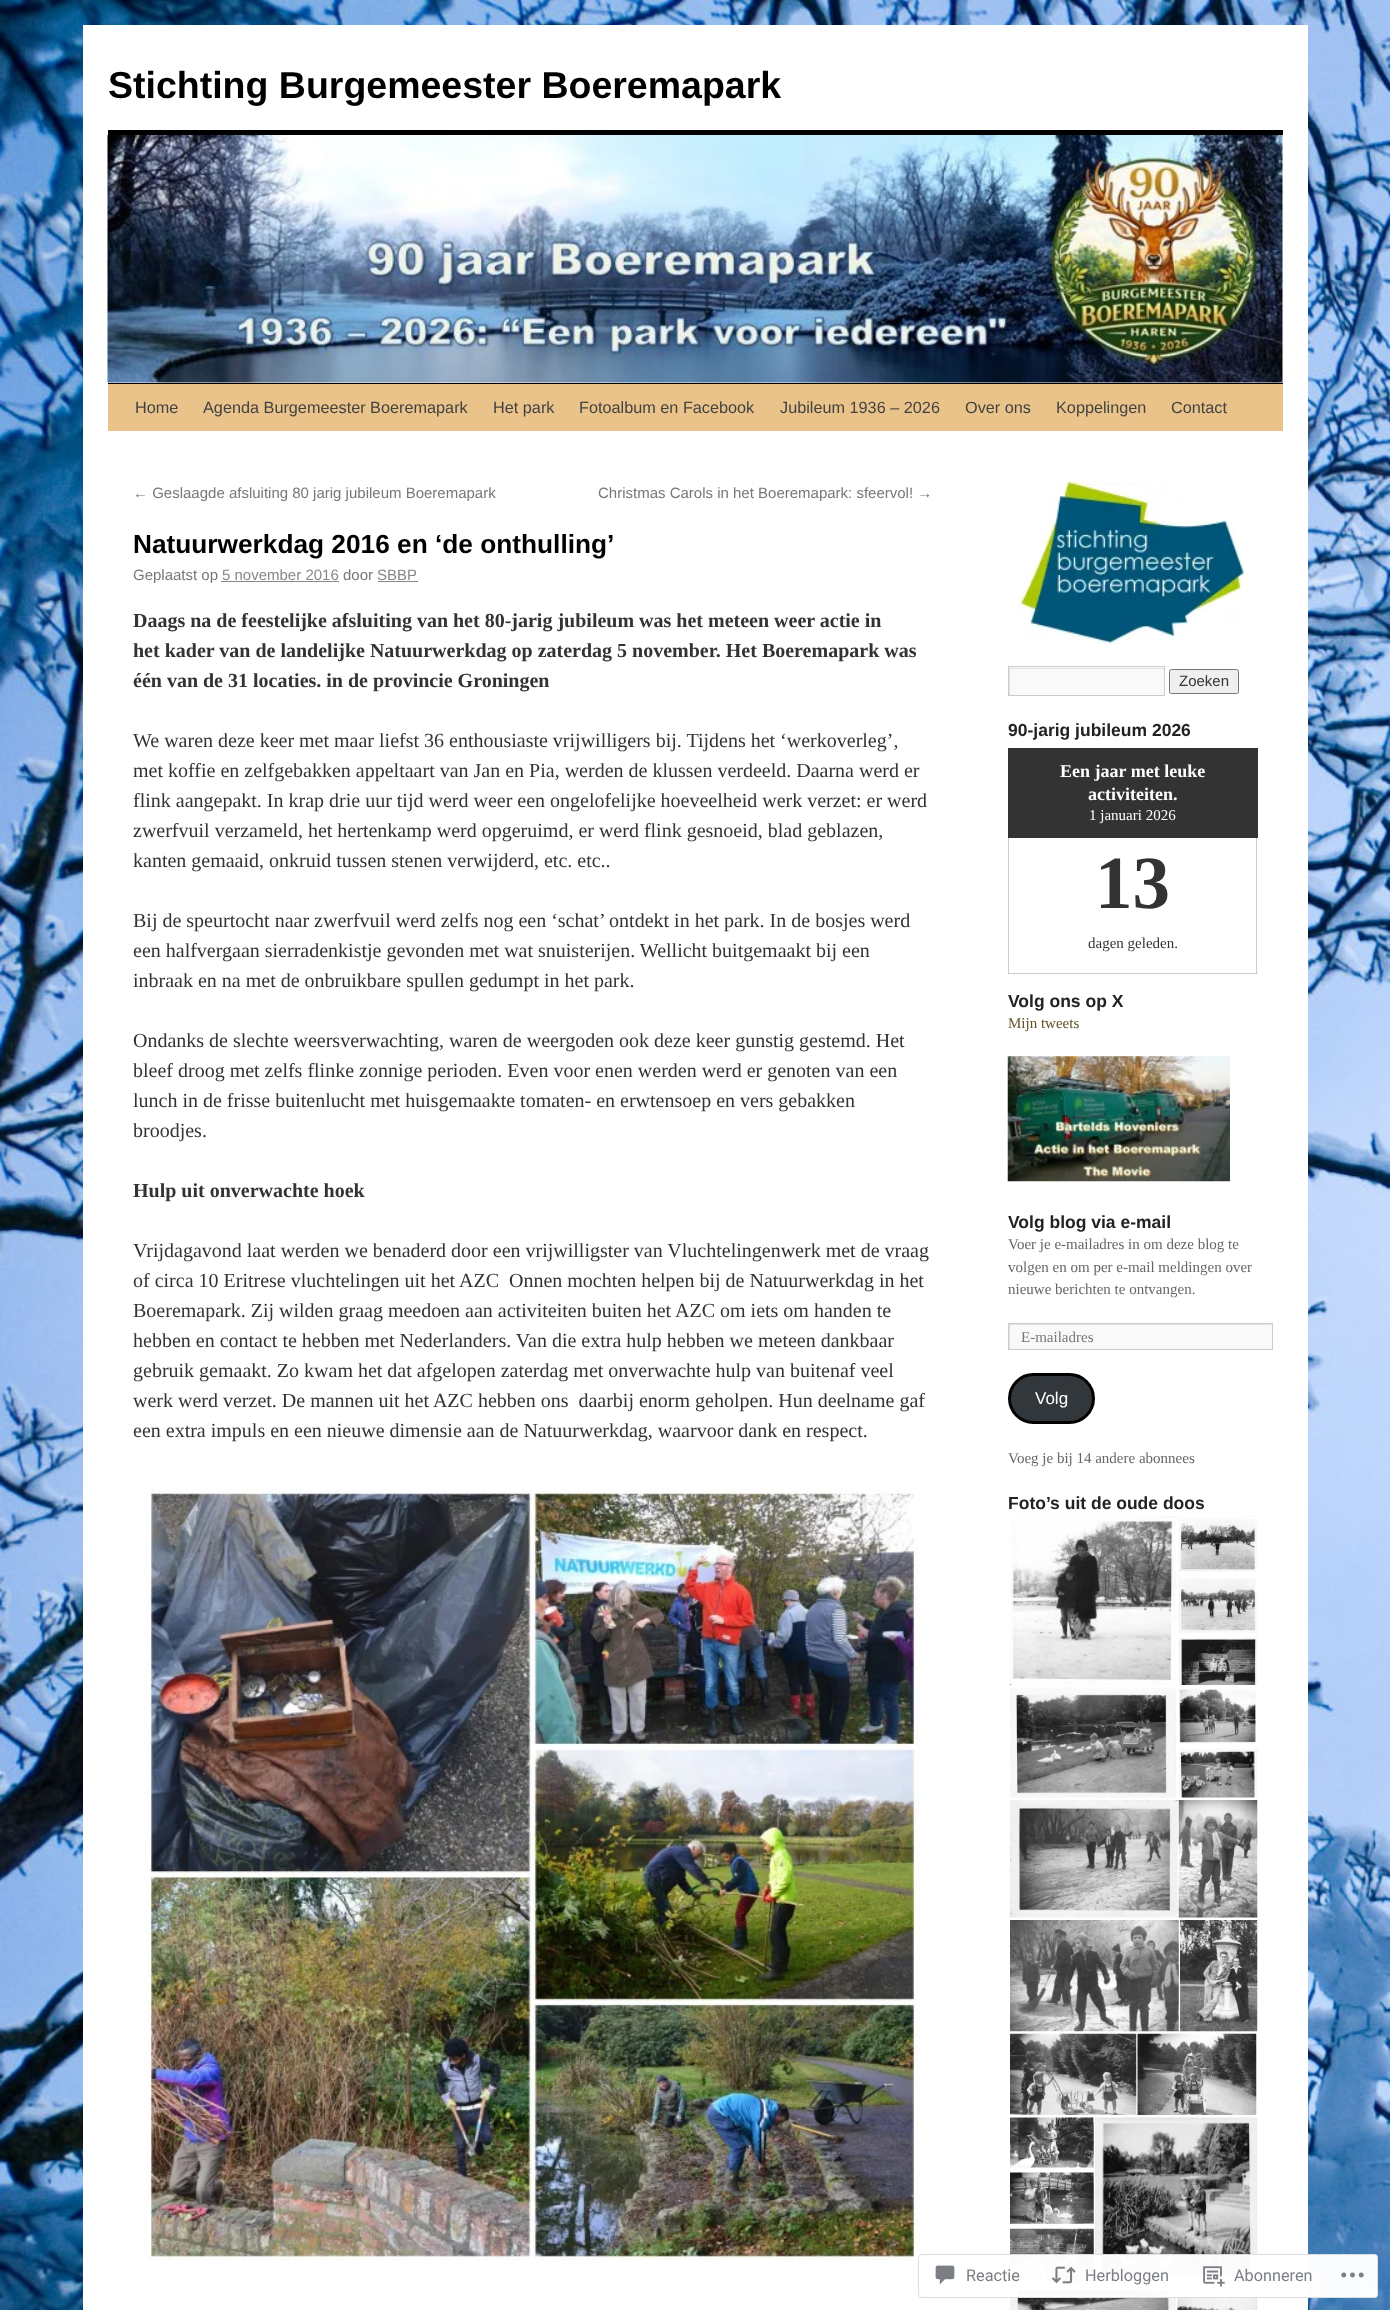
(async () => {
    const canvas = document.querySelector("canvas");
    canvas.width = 1390;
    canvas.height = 2310;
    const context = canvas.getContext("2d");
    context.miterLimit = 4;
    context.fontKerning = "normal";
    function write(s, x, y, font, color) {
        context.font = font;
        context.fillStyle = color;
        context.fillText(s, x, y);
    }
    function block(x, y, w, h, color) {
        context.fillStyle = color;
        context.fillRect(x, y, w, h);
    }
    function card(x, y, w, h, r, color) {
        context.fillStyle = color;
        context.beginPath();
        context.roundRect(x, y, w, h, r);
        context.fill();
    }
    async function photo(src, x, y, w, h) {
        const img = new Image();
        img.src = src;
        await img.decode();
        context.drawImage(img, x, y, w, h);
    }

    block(0, 0, 1390, 2310, "rgb(255, 255, 255)");
    await photo("media/1.png", 0, 0, 1390, 2310);
    block(83, 25, 1225, 2285, "rgb(255, 255, 255)");
    write("Stichting Burgemeester Boeremapark", 108, 98, "bold 37.5px Liberation Sans", "rgb(0, 0, 0)");
    block(108, 130, 1175, 5, "rgb(0, 0, 0)");
    block(108, 383, 1175, 1, "rgb(0, 0, 0)");
    await photo("media/2.png", 107, 135, 1176, 248);
    block(108, 384, 1175, 47, "rgb(234, 195, 138)");
    write("Home", 135, 413, "16.25px Liberation Sans", "rgb(66, 66, 66)");
    write("Agenda Burgemeester Boeremapark", 203, 413, "16.25px Liberation Sans", "rgb(66, 66, 66)");
    write("Het park", 493, 413, "16.25px Liberation Sans", "rgb(66, 66, 66)");
    write("Fotoalbum en Facebook", 579, 413, "16.25px Liberation Sans", "rgb(66, 66, 66)");
    write("Jubileum 1936 – 2026", 780, 413, "16.25px Liberation Sans", "rgb(66, 66, 66)");
    write("Over ons", 965, 413, "16.25px Liberation Sans", "rgb(66, 66, 66)");
    write("Koppelingen", 1056, 413, "16.25px Liberation Sans", "rgb(66, 66, 66)");
    write("Contact", 1171, 413, "16.25px Liberation Sans", "rgb(66, 66, 66)");
    write("← Geslaagde afsluiting 80 jarig jubileum Boeremapark", 133, 498, "15px Liberation Sans", "rgb(119, 119, 119)");
    write("Christmas Carols in het Boeremapark: sfeervol! →", 598, 498, "15px Liberation Sans", "rgb(119, 119, 119)");
    write("Natuurwerkdag 2016 en ‘de onthulling’", 133, 553, "bold 26.25px Liberation Sans", "rgb(0, 0, 0)");
    write("Geplaatst op", 133, 580, "15px Liberation Sans", "rgb(119, 119, 119)");
    write("5 november 2016", 222, 580, "15px Liberation Sans", "rgb(136, 136, 136)");
    block(221, 581, 118, 1, "rgb(136, 136, 136)");
    write("door", 343, 580, "15px Liberation Sans", "rgb(119, 119, 119)");
    write("SBBP", 377, 580, "15px Liberation Sans", "rgb(136, 136, 136)");
    block(378, 581, 40, 1, "rgb(136, 136, 136)");
    write("Daags na de feestelijke afsluiting van het 80-jarig jubileum was het meteen weer actie in", 133, 627, "bold 20px Liberation Serif", "rgb(51, 51, 51)");
    write("het kader van de landelijke Natuurwerkdag op zaterdag 5 november. Het Boeremapark was", 133, 657, "bold 20px Liberation Serif", "rgb(51, 51, 51)");
    write("één van de 31 locaties. in de provincie Groningen", 133, 687, "bold 20px Liberation Serif", "rgb(51, 51, 51)");
    write("We waren deze keer met maar liefst 36 enthousiaste vrijwilligers bij. Tijdens het ‘werkoverleg’,", 133, 747, "20px Liberation Serif", "rgb(51, 51, 51)");
    write("met koffie en zelfgebakken appeltaart van Jan en Pia, werden de klussen verdeeld. Daarna werd er", 133, 777, "20px Liberation Serif", "rgb(51, 51, 51)");
    write("flink aangepakt. In krap drie uur tijd werd weer een ongelofelijke hoeveelheid werk verzet: er werd", 133, 807, "20px Liberation Serif", "rgb(51, 51, 51)");
    write("zwerfvuil verzameld, het hertenkamp werd opgeruimd, er werd flink gesnoeid, blad geblazen,", 133, 837, "20px Liberation Serif", "rgb(51, 51, 51)");
    write("kanten gemaaid, onkruid tussen stenen verwijderd, etc. etc..", 133, 867, "20px Liberation Serif", "rgb(51, 51, 51)");
    write("Bij de speurtocht naar zwerfvuil werd zelfs nog een ‘schat’ ontdekt in het park. In de bosjes werd", 133, 927, "20px Liberation Serif", "rgb(51, 51, 51)");
    write("een halfvergaan sierradenkistje gevonden met wat snuisterijen. Wellicht buitgemaakt bij een", 133, 957, "20px Liberation Serif", "rgb(51, 51, 51)");
    write("inbraak en na met de onbruikbare spullen gedumpt in het park.", 133, 987, "20px Liberation Serif", "rgb(51, 51, 51)");
    write("Ondanks de slechte weersverwachting, waren de weergoden ook deze keer gunstig gestemd. Het", 133, 1047, "20px Liberation Serif", "rgb(51, 51, 51)");
    write("bleef droog met zelfs flinke zonnige perioden. Even voor enen werden werd er genoten van een", 133, 1077, "20px Liberation Serif", "rgb(51, 51, 51)");
    write("lunch in de frisse buitenlucht met huisgemaakte tomaten- en erwtensoep en vers gebakken", 133, 1107, "20px Liberation Serif", "rgb(51, 51, 51)");
    write("broodjes.", 133, 1137, "20px Liberation Serif", "rgb(51, 51, 51)");
    write("Hulp uit onverwachte hoek", 133, 1197, "bold 20px Liberation Serif", "rgb(51, 51, 51)");
    write("Vrijdagavond laat werden we benaderd door een vrijwilligster van Vluchtelingenwerk met de vraag", 133, 1257, "20px Liberation Serif", "rgb(51, 51, 51)");
    write("of circa 10 Eritrese vluchtelingen uit het AZC  Onnen mochten helpen bij de Natuurwerkdag in het", 133, 1287, "20px Liberation Serif", "rgb(51, 51, 51)");
    write("Boeremapark. Zij wilden graag meedoen aan activiteiten buiten het AZC om iets om handen te", 133, 1317, "20px Liberation Serif", "rgb(51, 51, 51)");
    write("hebben en contact te hebben met Nederlanders. Van die extra hulp hebben we meteen dankbaar", 133, 1347, "20px Liberation Serif", "rgb(51, 51, 51)");
    write("gebruik gemaakt. Zo kwam het dat afgelopen zaterdag met onverwachte hulp van buitenaf veel", 133, 1377, "20px Liberation Serif", "rgb(51, 51, 51)");
    write("werk werd verzet. De mannen uit het AZC hebben ons  daarbij enorm geholpen. Hun deelname gaf", 133, 1407, "20px Liberation Serif", "rgb(51, 51, 51)");
    write("een extra impuls en een nieuwe dimensie aan de Natuurwerkdag, waarvoor dank en respect.", 133, 1437, "20px Liberation Serif", "rgb(51, 51, 51)");
    await photo("media/3.png", 143, 1489, 779, 772);
    await photo("media/4.png", 1020, 481, 225, 163);
    block(1009, 667, 155, 28, "rgb(249, 249, 249)");
    context.save();
    context.beginPath();
    context.rect(1009, 668, 155, 27);
    context.clip();
    context.fillStyle = "rgb(224, 224, 224)";
    context.beginPath();
    context.moveTo(885, 544);
    context.lineTo(1288, 544);
    context.lineTo(1288, 819);
    context.lineTo(885, 819);
    context.closePath();
    context.moveTo(1010, 669);
    context.lineTo(1165, 669);
    context.lineTo(1165, 696);
    context.lineTo(1010, 696);
    context.closePath();
    context.fill("evenodd");
    context.restore();
    context.strokeStyle = "rgb(204, 204, 204)";
    context.strokeRect(1008.5, 666.5, 156, 29);
    context.fillStyle = "rgb(239, 239, 239)";
    context.beginPath();
    context.roundRect(1169.5, 669.5, 69, 24, 2);
    context.fill();
    context.strokeStyle = "rgb(118, 118, 118)";
    context.stroke();
    write("Zoeken", 1179, 686, "15px Liberation Sans", "rgb(51, 51, 51)");
    write("90-jarig jubileum 2026", 1008, 736, "bold 17.5px Liberation Sans", "rgb(34, 34, 34)");
    block(1008, 748, 250, 90, "rgb(51, 51, 51)");
    write("Een jaar met leuke", 1060, 777, "bold 18px Liberation Serif", "rgb(255, 255, 255)");
    write("activiteiten.", 1088, 800, "bold 18px Liberation Serif", "rgb(255, 255, 255)");
    write("1 januari 2026", 1089, 820, "15px Liberation Serif", "rgb(255, 255, 255)");
    block(1256, 838, 1, 136, "rgb(204, 204, 204)");
    block(1008, 973, 250, 1, "rgb(204, 204, 204)");
    block(1008, 838, 1, 136, "rgb(204, 204, 204)");
    write("13", 1095, 908, "bold 75px Liberation Serif", "rgb(51, 51, 51)");
    write("dagen geleden.", 1088, 948, "15px Liberation Serif", "rgb(51, 51, 51)");
    write("Volg ons op X", 1008, 1007, "bold 17.5px Liberation Sans", "rgb(34, 34, 34)");
    write("Mijn tweets", 1008, 1028, "15px Liberation Serif", "rgb(95, 81, 34)");
    await photo("media/5.png", 1007, 1056, 223, 126);
    write("Volg blog via e-mail", 1008, 1228, "bold 17.5px Liberation Sans", "rgb(34, 34, 34)");
    write("Voer je e-mailadres in om deze blog te", 1008, 1249, "15px Liberation Serif", "rgb(102, 102, 102)");
    write("volgen en om per e-mail meldingen over", 1008, 1272, "15px Liberation Serif", "rgb(102, 102, 102)");
    write("nieuwe berichten te ontvangen.", 1008, 1294, "15px Liberation Serif", "rgb(102, 102, 102)");
    block(1010, 1324, 262, 25, "rgb(249, 249, 249)");
    context.save();
    context.beginPath();
    context.rect(1009, 1324, 262, 25);
    context.clip();
    context.fillStyle = "rgb(224, 224, 224)";
    context.beginPath();
    context.moveTo(885, 1200);
    context.lineTo(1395, 1200);
    context.lineTo(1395, 1472);
    context.lineTo(885, 1472);
    context.closePath();
    context.moveTo(1010, 1325);
    context.lineTo(1272, 1325);
    context.lineTo(1272, 1350);
    context.lineTo(1010, 1350);
    context.closePath();
    context.fill("evenodd");
    context.restore();
    context.strokeStyle = "rgb(204, 204, 204)";
    context.strokeRect(1008.5, 1323.5, 264, 26);
    write("E-mailadres", 1021, 1342, "15px Liberation Serif", "rgb(119, 119, 119)");
    context.fillStyle = "rgb(50, 55, 60)";
    context.beginPath();
    context.roundRect(1009.5, 1374.5, 84, 48, 24);
    context.fill();
    context.strokeStyle = "rgb(0, 0, 0)";
    context.lineWidth = 3;
    context.stroke();
    write("Volg", 1035, 1404, "17px Liberation Sans", "rgb(255, 255, 255)");
    write("Voeg je bij 14 andere abonnees", 1008, 1463, "15px Liberation Serif", "rgb(102, 102, 102)");
    write("Foto’s uit de oude doos", 1008, 1509, "bold 17.5px Liberation Sans", "rgb(34, 34, 34)");
    await photo("media/6.png", 1010, 1516, 166, 169);
    await photo("media/7.png", 1178, 1516, 79, 56);
    await photo("media/8.png", 1178, 1578, 79, 55);
    await photo("media/9.png", 1178, 1637, 80, 48);
    await photo("media/10.png", 1010, 1687, 167, 111);
    await photo("media/11.png", 1179, 1689, 77, 55);
    await photo("media/12.png", 1179, 1748, 79, 50);
    await photo("media/13.png", 1010, 1800, 168, 118);
    await photo("media/14.png", 1178, 1800, 80, 118);
    await photo("media/15.png", 1010, 1920, 169, 112);
    await photo("media/16.png", 1180, 1920, 78, 112);
    await photo("media/17.png", 1010, 2033, 127, 82);
    await photo("media/18.png", 1137, 2033, 120, 82);
    await photo("media/19.png", 1010, 2117, 84, 51);
    await photo("media/20.png", 1010, 2172, 84, 52);
    await photo("media/21.png", 1010, 2228, 84, 54);
    await photo("media/22.png", 1095, 2117, 163, 164);
    await photo("media/23.png", 1010, 2284, 166, 26);
    await photo("media/24.png", 1177, 2283, 81, 27);
    card(918, 2254, 460, 44, 4, "rgba(255, 255, 255, 0.98)");
    context.beginPath();
    context.roundRect(918.5, 2254.5, 459, 43, 3.5);
    context.strokeStyle = "rgba(220, 220, 222, 0.98)";
    context.lineWidth = 1;
    context.stroke();
    await photo("media/25.png", 935, 2265, 20, 20);
    write("Reactie", 966, 2281, "16.25px Roboto", "rgb(123, 127, 132)");
    await photo("media/26.png", 1051, 2266, 25, 18);
    write("Herbloggen", 1085, 2281, "16.25px Roboto", "rgb(123, 127, 132)");
    await photo("media/27.png", 1203, 2266, 22, 21);
    write("Abonneren", 1234, 2281, "16.25px Roboto", "rgb(123, 127, 132)");
    await photo("media/28.png", 1341, 2272, 23, 6);
})();
